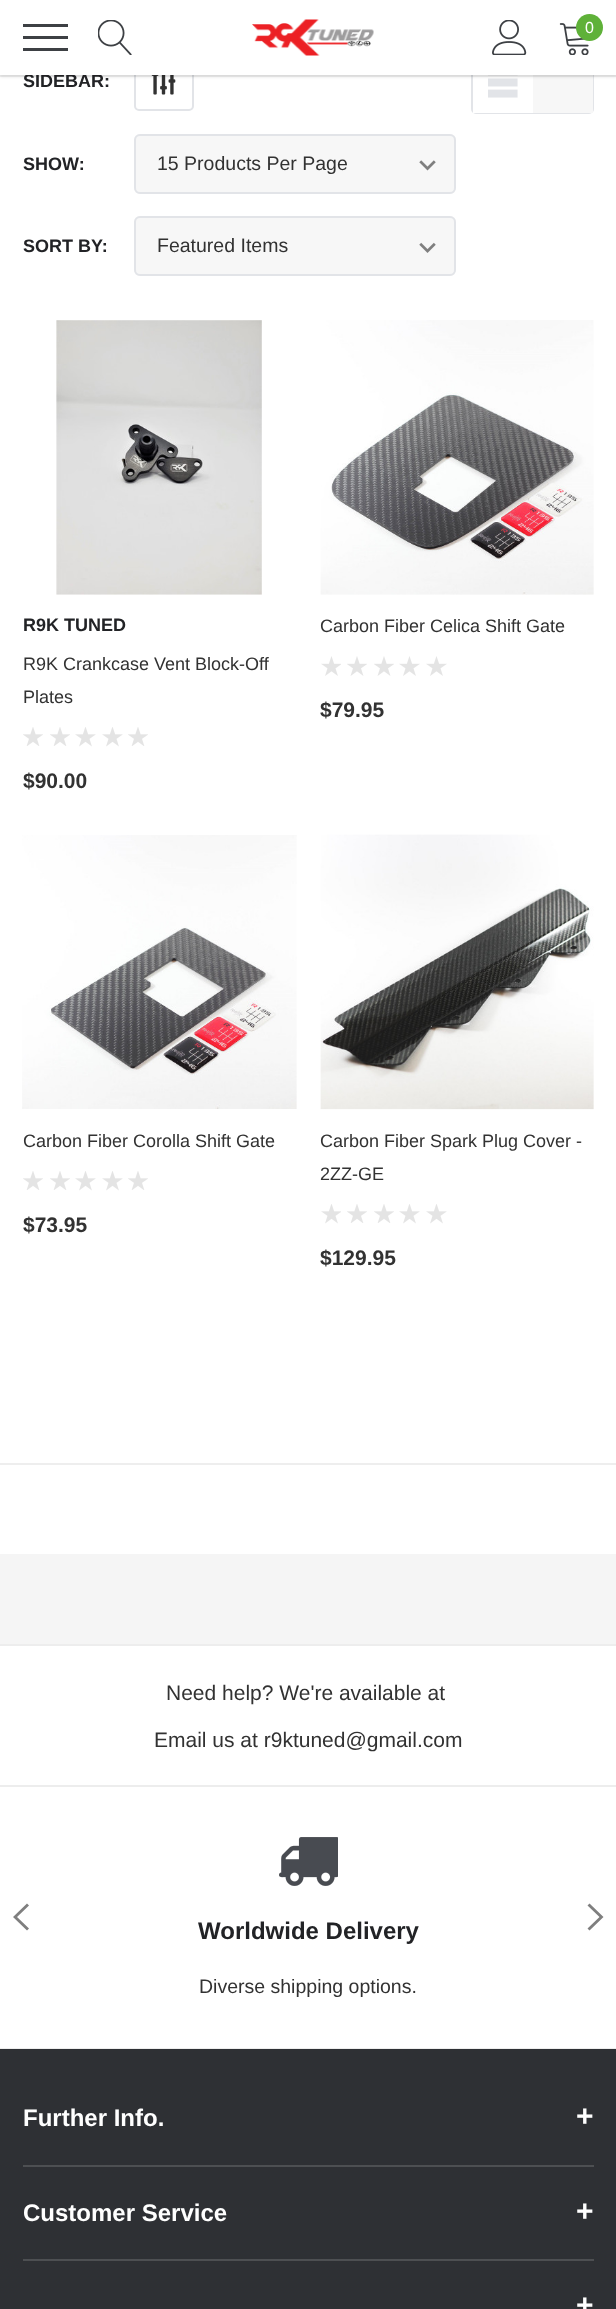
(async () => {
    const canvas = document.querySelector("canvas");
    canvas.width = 616;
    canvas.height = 2309;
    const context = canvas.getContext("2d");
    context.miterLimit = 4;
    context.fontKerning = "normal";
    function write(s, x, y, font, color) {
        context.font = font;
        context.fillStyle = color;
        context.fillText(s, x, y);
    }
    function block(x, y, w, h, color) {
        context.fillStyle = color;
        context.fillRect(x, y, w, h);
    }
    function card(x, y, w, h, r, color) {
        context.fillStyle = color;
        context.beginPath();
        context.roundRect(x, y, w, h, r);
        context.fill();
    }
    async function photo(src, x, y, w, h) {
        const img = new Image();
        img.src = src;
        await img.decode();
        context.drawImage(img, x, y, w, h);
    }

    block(0, 0, 616, 2309, "rgb(255, 255, 255)");
    context.beginPath();
    context.roundRect(135, 52, 58, 58, 4);
    context.strokeStyle = "rgb(226, 228, 232)";
    context.lineWidth = 2;
    context.stroke();
    await photo("media/5.png", 151, 75, 25, 20);
    context.beginPath();
    context.roundRect(472, 52, 121, 61, 4);
    context.stroke();
    await photo("media/6.png", 488, 75, 30, 23);
    block(533, 75, 60, 38, "rgb(247, 247, 247)");
    context.fillStyle = "rgba(0, 0, 0, 0.1)";
    context.filter = "blur(1.5px)";
    context.beginPath();
    context.rect(0, 2, 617, 75);
    context.fill();
    context.filter = "none";
    write("SIDEBAR:", 23, 87, "bold 18px Arimo", "rgb(34, 35, 38)");
    context.strokeStyle = "rgba(0, 0, 0, 0.06)";
    context.strokeRect(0, 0, 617, 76);
    block(0, 0, 616, 75, "rgb(255, 255, 255)");
    block(23, 36, 45, 3, "rgb(61, 64, 68)");
    block(23, 24, 45, 3, "rgb(61, 64, 68)");
    block(23, 48, 45, 3, "rgb(61, 64, 68)");
    await photo("media/1.png", 98, 20, 34, 35);
    await photo("media/2.png", 252, 19, 122, 37);
    await photo("media/3.png", 492, 20, 35, 35);
    await photo("media/4.png", 559, 23, 30, 32);
    context.fillStyle = "rgb(95, 177, 57)";
    context.beginPath();
    context.arc(589.5, 27.5, 13.5, 0, Math.PI * 2);
    context.fill();
    write("0", 585, 33, "16px Arimo", "rgb(255, 255, 255)");
    block(473, 109, 60, 4, "rgb(255, 255, 255)");
    write("SHOW:", 23, 170, "bold 18px Arimo", "rgb(34, 35, 38)");
    card(134, 134, 322, 60, 6, "rgb(247, 247, 247)");
    await photo("media/7.png", 419, 160, 17, 11);
    context.beginPath();
    context.roundRect(135, 135, 320, 58, 5);
    context.strokeStyle = "rgb(226, 228, 232)";
    context.stroke();
    write("15 Products Per Page", 157, 170, "19.5px Arimo", "rgb(50, 50, 50)");
    write("SORT BY:", 23, 252, "bold 18px Arimo", "rgb(34, 35, 38)");
    card(134, 216, 322, 60, 6, "rgb(247, 247, 247)");
    await photo("media/8.png", 419, 242, 17, 11);
    context.beginPath();
    context.roundRect(135, 217, 320, 58, 5);
    context.stroke();
    write("Featured Items", 157, 252, "19.5px Arimo", "rgb(50, 50, 50)");
    await photo("media/9.png", 56, 320, 206, 275);
    write("R9K TUNED", 23, 631, "bold 18px Arimo", "rgb(34, 35, 38)");
    write("R9K Crankcase Vent Block-Off", 23, 670, "18px Arimo", "rgb(50, 50, 50)");
    write("Plates", 23, 703, "18px Arimo", "rgb(50, 50, 50)");
    await photo("media/10.png", 23, 727, 20, 19);
    await photo("media/10.png", 50, 727, 20, 19);
    await photo("media/11.png", 75, 727, 21, 20);
    await photo("media/11.png", 102, 727, 21, 20);
    await photo("media/10.png", 128, 727, 20, 19);
    write("$90.00", 23, 788, "bold 21px Arimo", "rgb(50, 50, 50)");
    await photo("media/12.png", 320, 320, 274, 275);
    write("Carbon Fiber Celica Shift Gate", 320, 632, "18px Arimo", "rgb(50, 50, 50)");
    await photo("media/13.png", 321, 656, 20, 20);
    await photo("media/14.png", 347, 656, 20, 20);
    await photo("media/14.png", 374, 656, 20, 20);
    await photo("media/15.png", 399, 656, 21, 20);
    await photo("media/15.png", 426, 656, 21, 20);
    write("$79.95", 320, 717, "bold 21px Arimo", "rgb(50, 50, 50)");
    await photo("media/16.png", 22, 835, 275, 274);
    write("Carbon Fiber Corolla Shift Gate", 23, 1147, "18px Arimo", "rgb(50, 50, 50)");
    await photo("media/10.png", 23, 1171, 20, 19);
    await photo("media/10.png", 50, 1171, 20, 19);
    await photo("media/11.png", 75, 1171, 21, 20);
    await photo("media/11.png", 102, 1171, 21, 20);
    await photo("media/10.png", 128, 1171, 20, 19);
    write("$73.95", 23, 1232, "bold 21px Arimo", "rgb(50, 50, 50)");
    await photo("media/17.png", 320, 834, 274, 276);
    write("Carbon Fiber Spark Plug Cover -", 320, 1147, "18px Arimo", "rgb(50, 50, 50)");
    write("2ZZ-GE", 320, 1180, "18px Arimo", "rgb(50, 50, 50)");
    await photo("media/18.png", 321, 1204, 20, 20);
    await photo("media/10.png", 347, 1204, 20, 19);
    await photo("media/10.png", 374, 1204, 20, 19);
    await photo("media/11.png", 399, 1204, 21, 20);
    await photo("media/11.png", 426, 1204, 21, 20);
    write("$129.95", 320, 1265, "bold 21px Arimo", "rgb(50, 50, 50)");
    block(0, 1463, 616, 2, "rgb(238, 238, 238)");
    block(0, 1554, 616, 90, "rgb(245, 245, 245)");
    block(0, 1644, 616, 2, "rgb(237, 237, 237)");
    write("Need help? We're available at", 166, 1700, "21px Arimo", "rgb(50, 50, 50)");
    write("Email us at r9ktuned@gmail.com", 154, 1747, "21px Arimo", "rgb(50, 50, 50)");
    block(0, 1785, 616, 2, "rgb(237, 237, 237)");
    block(0, 2048, 616, 1, "rgb(237, 237, 237)");
    context.fillStyle = "rgb(127, 127, 127)";
    context.beginPath();
    context.moveTo(29, 1905.5);
    context.lineTo(27, 1903.5);
    context.lineTo(13, 1917);
    context.lineTo(27, 1930.5);
    context.lineTo(29, 1928.5);
    context.lineTo(17, 1917);
    context.closePath();
    context.fill();
    context.beginPath();
    context.moveTo(589.5, 1903.5);
    context.lineTo(587.5, 1905.5);
    context.lineTo(599.5, 1917);
    context.lineTo(587.5, 1928.5);
    context.lineTo(589.5, 1930.5);
    context.lineTo(603.5, 1917);
    context.closePath();
    context.fill();
    await photo("media/19.png", 279, 1837, 59, 49);
    write("Worldwide Delivery", 198, 1939, "bold 24px Arimo", "rgb(34, 35, 38)");
    write("Diverse shipping options.", 199, 1993, "19.5px Arimo", "rgb(50, 50, 50)");
    block(0, 2049, 616, 260, "rgb(46, 48, 52)");
    block(23, 2165, 571, 2, "rgb(77, 79, 82)");
    write("Further Info.", 23, 2126, "bold 24px Arimo", "rgb(255, 255, 255)");
    write("+", 576, 2126, "bold 30px Arimo", "rgb(255, 255, 255)");
    block(23, 2259, 571, 2, "rgb(77, 79, 82)");
    write("Customer Service", 23, 2221, "bold 24px Arimo", "rgb(255, 255, 255)");
    write("+", 576, 2221, "bold 30px Arimo", "rgb(255, 255, 255)");
    write("+", 576, 2315, "bold 30px Arimo", "rgb(255, 255, 255)");
})();
